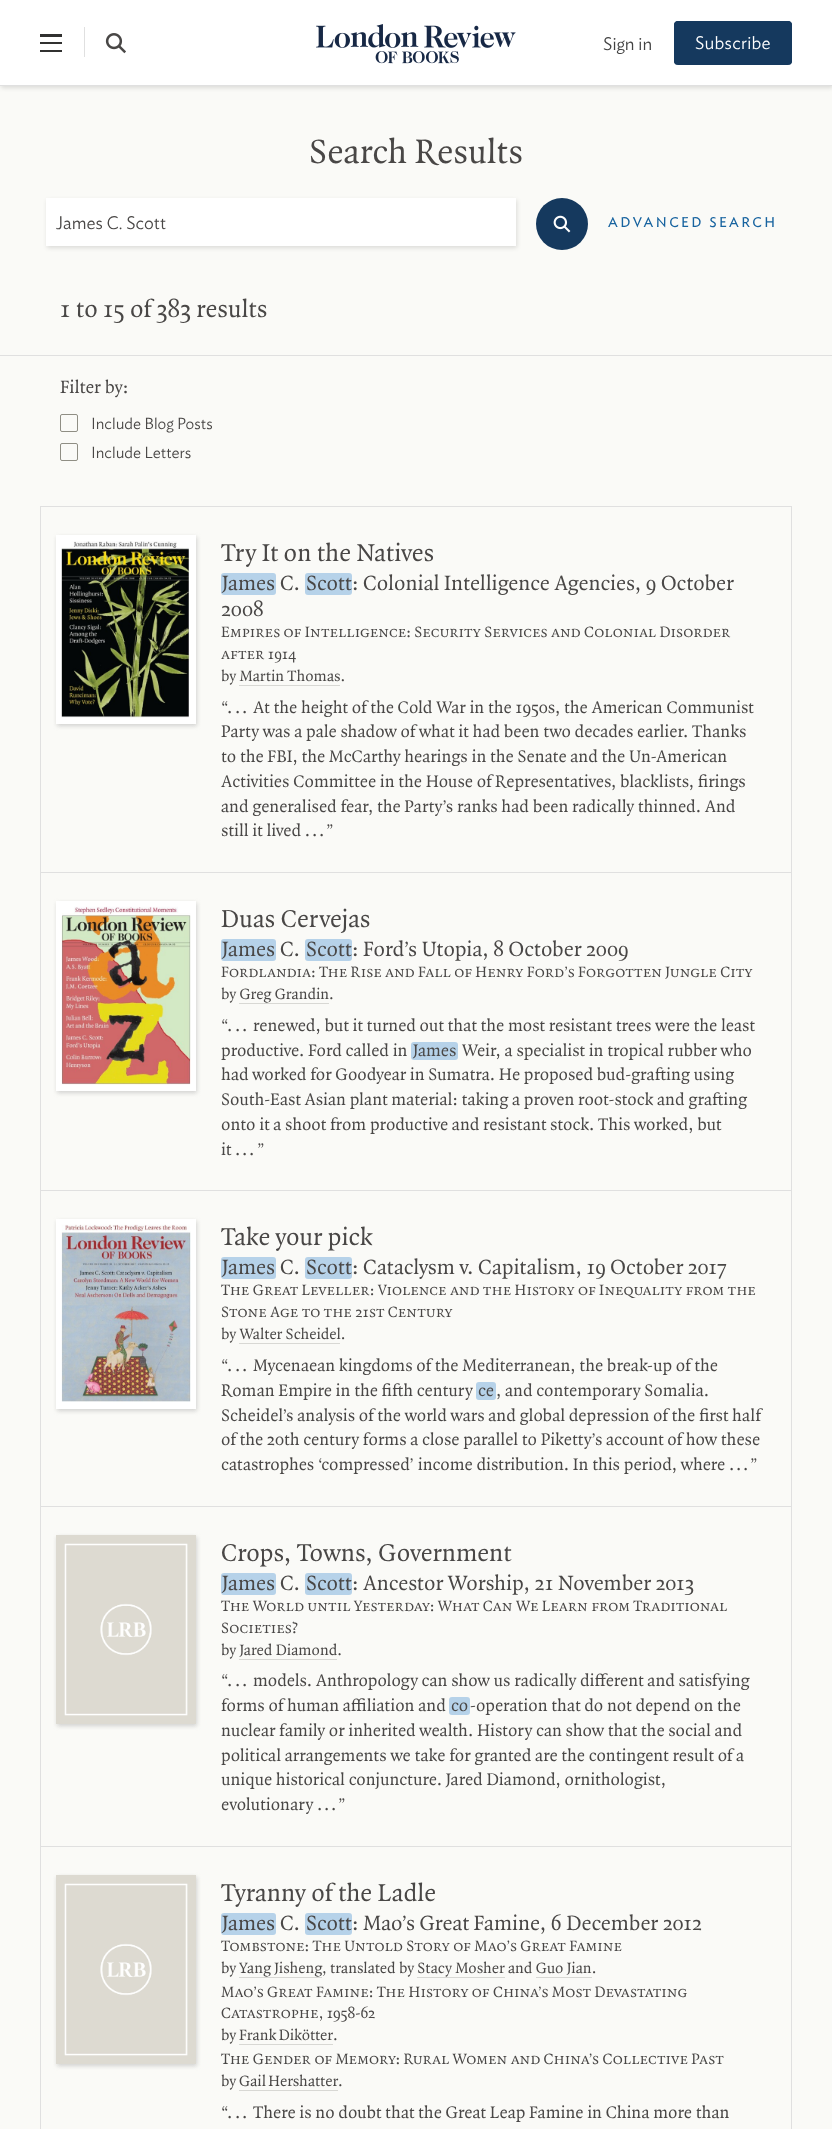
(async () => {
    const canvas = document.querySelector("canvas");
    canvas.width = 832;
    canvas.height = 2129;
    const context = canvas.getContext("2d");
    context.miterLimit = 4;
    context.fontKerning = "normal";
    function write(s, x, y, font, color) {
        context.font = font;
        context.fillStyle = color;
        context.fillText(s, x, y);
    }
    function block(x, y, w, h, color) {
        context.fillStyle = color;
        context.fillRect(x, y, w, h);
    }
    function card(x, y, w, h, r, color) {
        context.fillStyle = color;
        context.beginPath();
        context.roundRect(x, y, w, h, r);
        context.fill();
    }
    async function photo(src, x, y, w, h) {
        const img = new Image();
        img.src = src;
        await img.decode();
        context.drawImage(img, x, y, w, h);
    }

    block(0, 0, 832, 2129, "rgb(250, 250, 247)");
    context.fillStyle = "rgba(0, 0, 0, 0.12)";
    context.filter = "blur(2px)";
    context.beginPath();
    context.rect(1, 2, 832, 86);
    context.fill();
    context.filter = "none";
    block(0, 0, 832, 85, "rgb(255, 255, 255)");
    block(0, 85, 832, 1, "rgb(224, 224, 224)");
    block(84, 27, 1, 30, "rgb(224, 224, 224)");
    block(40, 34, 22, 3, "rgb(49, 49, 48)");
    block(40, 42, 22, 2, "rgb(49, 49, 48)");
    block(40, 50, 22, 2, "rgb(49, 49, 48)");
    await photo("media/1.png", 105, 33, 21, 21);
    await photo("media/2.png", 316, 24, 200, 40);
    write("Sign in", 603, 50, "300 18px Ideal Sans", "rgb(66, 66, 66)");
    card(674, 21, 118, 44, 4, "rgb(21, 57, 94)");
    context.beginPath();
    context.moveTo(678, 21);
    context.lineTo(788, 21);
    context.bezierCurveTo(790, 21, 792, 23, 792, 25);
    context.lineTo(792, 61);
    context.bezierCurveTo(792, 63, 790, 65, 788, 65);
    context.lineTo(678, 65);
    context.bezierCurveTo(676, 65, 674, 63, 674, 61);
    context.lineTo(674, 25);
    context.bezierCurveTo(674, 23, 676, 21, 678, 21);
    context.closePath();
    context.moveTo(678, 22);
    context.lineTo(788, 22);
    context.bezierCurveTo(790, 22, 791, 23, 791, 25);
    context.lineTo(791, 61);
    context.bezierCurveTo(791, 63, 790, 65, 788, 65);
    context.lineTo(678, 65);
    context.bezierCurveTo(676, 65, 675, 63, 675, 61);
    context.lineTo(675, 25);
    context.bezierCurveTo(675, 23, 676, 22, 678, 22);
    context.closePath();
    context.fill("evenodd");
    context.letterSpacing = "0.25px";
    write("Subscribe", 695, 49, "300 18px Ideal Sans", "rgb(255, 255, 255)");
    context.letterSpacing = "0px";
    write("Search Results", 309, 163, "36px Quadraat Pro", "rgb(73, 71, 70)");
    context.fillStyle = "rgba(0, 0, 0, 0.12)";
    context.filter = "blur(2px)";
    context.beginPath();
    context.rect(47, 200, 470, 48);
    context.fill();
    context.filter = "none";
    block(46, 198, 470, 48, "rgb(255, 255, 255)");
    write("James C. Scott", 56, 229, "300 18px Ideal Sans", "rgb(73, 71, 70)");
    context.fillStyle = "rgb(21, 57, 94)";
    context.beginPath();
    context.arc(562, 224, 26, 0, Math.PI * 2);
    context.fill();
    await photo("media/3.png", 553, 215, 18, 18);
    context.letterSpacing = "2.4px";
    write("ADVANCED SEARCH", 608, 227, "14px Ideal Sans", "rgb(23, 99, 159)");
    context.letterSpacing = "0px";
    write("1 to 15 of 383 results", 60, 317, "26px Quadraat Pro", "rgb(73, 71, 70)");
    block(0, 355, 832, 1, "rgb(224, 224, 224)");
    block(40, 506, 752, 1, "rgb(224, 224, 224)");
    write("Filter by:", 60, 393, "19px Quadraat Pro", "rgb(73, 71, 70)");
    context.beginPath();
    context.roundRect(60.5, 414.5, 17, 17, 1.5);
    context.strokeStyle = "rgb(143, 142, 132)";
    context.stroke();
    write("Include Blog Posts", 91, 429, "300 16px Ideal Sans", "rgb(73, 71, 70)");
    context.beginPath();
    context.roundRect(60.5, 443.5, 17, 17, 1.5);
    context.stroke();
    write("Include Letters", 91, 458, "300 16px Ideal Sans", "rgb(73, 71, 70)");
    block(791, 507, 1, 1622, "rgb(224, 224, 224)");
    block(40, 507, 1, 1622, "rgb(224, 224, 224)");
    context.fillStyle = "rgba(149, 149, 149, 0.4)";
    context.filter = "blur(2px)";
    context.beginPath();
    context.rect(57, 537, 140, 189);
    context.fill();
    context.filter = "none";
    block(56, 535, 140, 189, "rgb(255, 255, 255)");
    await photo("media/4.png", 61, 541, 129, 177);
    write("Try It on the Natives", 221, 561, "26px Quadraat Pro", "rgb(73, 71, 70)");
    card(221, 573, 55, 22, 3, "rgb(182, 210, 233)");
    write("James", 222, 590, "22px Quadraat Pro", "rgb(73, 71, 70)");
    write("C.", 280, 590, "22px Quadraat Pro", "rgb(73, 71, 70)");
    card(305, 573, 47, 22, 3, "rgb(182, 210, 233)");
    write("Scott", 306, 590, "22px Quadraat Pro", "rgb(73, 71, 70)");
    write(": Colonial Intelligence Agencies, 9 October", 352, 590, "22px Quadraat Pro", "rgb(73, 71, 70)");
    write("2008", 221, 616, "22px Quadraat Pro", "rgb(73, 71, 70)");
    write("Empires of Intelligence: Security Services and Colonial Disorder", 221, 637, "16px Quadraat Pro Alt", "rgb(73, 71, 70)");
    write("after 1914", 221, 659, "16px Quadraat Pro Alt", "rgb(73, 71, 70)");
    write("by Martin Thomas.", 221, 681, "16px Quadraat Pro", "rgb(73, 71, 70)");
    block(239, 685, 101, 1, "rgb(216, 216, 212)");
    write("“", 221, 713, "18px Quadraat Pro", "rgb(73, 71, 70)");
    write("At the height of the Cold War in the 1950s, the American Communist", 253, 713, "18px Quadraat Pro", "rgb(73, 71, 70)");
    write(".", 227, 713, "18px Quadraat Pro", "rgb(73, 71, 70)");
    write(".", 235, 713, "18px Quadraat Pro", "rgb(73, 71, 70)");
    write(".", 242, 713, "18px Quadraat Pro", "rgb(73, 71, 70)");
    write("Party was a pale shadow of what it had been two decades earlier. Thanks", 221, 737, "18px Quadraat Pro", "rgb(73, 71, 70)");
    write("to the FBI, the McCarthy hearings in the Senate and the Un-American", 221, 762, "18px Quadraat Pro", "rgb(73, 71, 70)");
    write("Activities Committee in the House of Representatives, blacklists, firings", 221, 787, "18px Quadraat Pro", "rgb(73, 71, 70)");
    write("and generalised fear, the Party’s ranks had been radically thinned. And", 221, 812, "18px Quadraat Pro", "rgb(73, 71, 70)");
    write("still it lived .", 221, 836, "18px Quadraat Pro", "rgb(73, 71, 70)");
    write("”", 326, 836, "18px Quadraat Pro", "rgb(73, 71, 70)");
    write(".", 312, 836, "18px Quadraat Pro", "rgb(73, 71, 70)");
    write(".", 319, 836, "18px Quadraat Pro", "rgb(73, 71, 70)");
    block(41, 872, 750, 1, "rgb(224, 224, 224)");
    context.fillStyle = "rgba(149, 149, 149, 0.4)";
    context.filter = "blur(2px)";
    context.beginPath();
    context.rect(57, 903, 140, 190);
    context.fill();
    context.filter = "none";
    block(56, 901, 140, 190, "rgb(255, 255, 255)");
    await photo("media/5.png", 61, 906, 130, 179);
    write("Duas Cervejas", 221, 927, "26px Quadraat Pro", "rgb(73, 71, 70)");
    card(221, 939, 55, 22, 3, "rgb(182, 210, 233)");
    write("James", 222, 956, "22px Quadraat Pro", "rgb(73, 71, 70)");
    write("C.", 280, 956, "22px Quadraat Pro", "rgb(73, 71, 70)");
    card(305, 939, 47, 22, 3, "rgb(182, 210, 233)");
    write("Scott", 306, 956, "22px Quadraat Pro", "rgb(73, 71, 70)");
    write(": Ford’s Utopia, 8 October 2009", 352, 956, "22px Quadraat Pro", "rgb(73, 71, 70)");
    write("Fordlandia: The Rise and Fall of Henry Ford’s Forgotten Jungle City", 221, 977, "16px Quadraat Pro Alt", "rgb(73, 71, 70)");
    write("by Greg Grandin.", 221, 999, "16px Quadraat Pro", "rgb(73, 71, 70)");
    block(239, 1003, 90, 1, "rgb(216, 216, 212)");
    write("“", 221, 1031, "18px Quadraat Pro", "rgb(73, 71, 70)");
    write("renewed, but it turned out that the most resistant trees were the least", 253, 1031, "18px Quadraat Pro", "rgb(73, 71, 70)");
    write(".", 227, 1031, "18px Quadraat Pro", "rgb(73, 71, 70)");
    write(".", 235, 1031, "18px Quadraat Pro", "rgb(73, 71, 70)");
    write(".", 242, 1031, "18px Quadraat Pro", "rgb(73, 71, 70)");
    write("productive. Ford called in", 221, 1056, "18px Quadraat Pro", "rgb(73, 71, 70)");
    card(411, 1042, 47, 18, 3, "rgb(182, 210, 233)");
    write("James", 413, 1056, "18px Quadraat Pro", "rgb(73, 71, 70)");
    write("Weir, a specialist in tropical rubber who", 462, 1056, "18px Quadraat Pro", "rgb(73, 71, 70)");
    write("had worked for Goodyear in Sumatra. He proposed bud-grafting using", 221, 1080, "18px Quadraat Pro", "rgb(73, 71, 70)");
    write("South-East Asian plant material: taking a proven root-stock and grafting", 221, 1105, "18px Quadraat Pro", "rgb(73, 71, 70)");
    write("onto it a shoot from productive and resistant stock. This worked, but", 221, 1130, "18px Quadraat Pro", "rgb(73, 71, 70)");
    write("it .", 221, 1155, "18px Quadraat Pro", "rgb(73, 71, 70)");
    write("”", 257, 1155, "18px Quadraat Pro", "rgb(73, 71, 70)");
    write(".", 242, 1155, "18px Quadraat Pro", "rgb(73, 71, 70)");
    write(".", 249, 1155, "18px Quadraat Pro", "rgb(73, 71, 70)");
    block(41, 1190, 750, 1, "rgb(224, 224, 224)");
    context.fillStyle = "rgba(149, 149, 149, 0.4)";
    context.filter = "blur(2px)";
    context.beginPath();
    context.rect(57, 1221, 140, 190);
    context.fill();
    context.filter = "none";
    block(56, 1219, 140, 190, "rgb(255, 255, 255)");
    await photo("media/6.png", 61, 1224, 130, 178);
    write("Take your pick", 221, 1245, "26px Quadraat Pro", "rgb(73, 71, 70)");
    card(221, 1257, 55, 22, 3, "rgb(182, 210, 233)");
    write("James", 222, 1274, "22px Quadraat Pro", "rgb(73, 71, 70)");
    write("C.", 280, 1274, "22px Quadraat Pro", "rgb(73, 71, 70)");
    card(305, 1257, 47, 22, 3, "rgb(182, 210, 233)");
    write("Scott", 306, 1274, "22px Quadraat Pro", "rgb(73, 71, 70)");
    write(": Cataclysm v. Capitalism, 19 October 2017", 352, 1274, "22px Quadraat Pro", "rgb(73, 71, 70)");
    write("The Great Leveller: Violence and the History of Inequality from the", 221, 1295, "16px Quadraat Pro Alt", "rgb(73, 71, 70)");
    write("Stone Age to the 21st Century", 221, 1317, "16px Quadraat Pro Alt", "rgb(73, 71, 70)");
    write("by Walter Scheidel.", 221, 1339, "16px Quadraat Pro", "rgb(73, 71, 70)");
    block(239, 1343, 101, 1, "rgb(216, 216, 212)");
    write("“", 221, 1371, "18px Quadraat Pro", "rgb(73, 71, 70)");
    write("Mycenaean kingdoms of the Mediterranean, the break-up of the", 253, 1371, "18px Quadraat Pro", "rgb(73, 71, 70)");
    write(".", 227, 1371, "18px Quadraat Pro", "rgb(73, 71, 70)");
    write(".", 235, 1371, "18px Quadraat Pro", "rgb(73, 71, 70)");
    write(".", 242, 1371, "18px Quadraat Pro", "rgb(73, 71, 70)");
    write("Roman Empire in the fifth century", 221, 1396, "18px Quadraat Pro", "rgb(73, 71, 70)");
    card(476, 1382, 20, 18, 3, "rgb(182, 210, 233)");
    write("ce", 478, 1396, "18px Quadraat Pro", "rgb(73, 71, 70)");
    write(", and contemporary Somalia.", 496, 1396, "18px Quadraat Pro", "rgb(73, 71, 70)");
    write("Scheidel’s analysis of the world wars and global depression of the first half", 221, 1421, "18px Quadraat Pro", "rgb(73, 71, 70)");
    write("of the 20th century forms a close parallel to Piketty’s account of how these", 221, 1445, "18px Quadraat Pro", "rgb(73, 71, 70)");
    write("catastrophes ‘compressed’ income distribution. In this period, where .", 221, 1470, "18px Quadraat Pro", "rgb(73, 71, 70)");
    write("”", 750, 1470, "18px Quadraat Pro", "rgb(73, 71, 70)");
    write(".", 736, 1470, "18px Quadraat Pro", "rgb(73, 71, 70)");
    write(".", 743, 1470, "18px Quadraat Pro", "rgb(73, 71, 70)");
    block(41, 1506, 750, 1, "rgb(224, 224, 224)");
    context.fillStyle = "rgba(149, 149, 149, 0.4)";
    context.filter = "blur(2px)";
    context.beginPath();
    context.rect(57, 1537, 140, 189);
    context.fill();
    context.filter = "none";
    await photo("media/7.png", 56, 1535, 140, 189);
    write("Crops, Towns, Government", 221, 1561, "26px Quadraat Pro", "rgb(73, 71, 70)");
    card(221, 1573, 55, 22, 3, "rgb(182, 210, 233)");
    write("James", 222, 1590, "22px Quadraat Pro", "rgb(73, 71, 70)");
    write("C.", 280, 1590, "22px Quadraat Pro", "rgb(73, 71, 70)");
    card(305, 1573, 47, 22, 3, "rgb(182, 210, 233)");
    write("Scott", 306, 1590, "22px Quadraat Pro", "rgb(73, 71, 70)");
    write(": Ancestor Worship, 21 November 2013", 352, 1590, "22px Quadraat Pro", "rgb(73, 71, 70)");
    write("The World until Yesterday: What Can We Learn from Traditional", 221, 1611, "16px Quadraat Pro Alt", "rgb(73, 71, 70)");
    write("Societies?", 221, 1633, "16px Quadraat Pro Alt", "rgb(73, 71, 70)");
    write("by Jared Diamond.", 221, 1655, "16px Quadraat Pro", "rgb(73, 71, 70)");
    block(239, 1659, 98, 1, "rgb(216, 216, 212)");
    write("“", 221, 1686, "18px Quadraat Pro", "rgb(73, 71, 70)");
    write("models. Anthropology can show us radically different and satisfying", 253, 1686, "18px Quadraat Pro", "rgb(73, 71, 70)");
    write(".", 227, 1686, "18px Quadraat Pro", "rgb(73, 71, 70)");
    write(".", 235, 1686, "18px Quadraat Pro", "rgb(73, 71, 70)");
    write(".", 242, 1686, "18px Quadraat Pro", "rgb(73, 71, 70)");
    write("forms of human affiliation and", 221, 1711, "18px Quadraat Pro", "rgb(73, 71, 70)");
    card(449, 1697, 21, 18, 3, "rgb(182, 210, 233)");
    write("co", 451, 1711, "18px Quadraat Pro", "rgb(73, 71, 70)");
    write("-operation that do not depend on the", 470, 1711, "18px Quadraat Pro", "rgb(73, 71, 70)");
    write("nuclear family or inherited wealth. History can show that the social and", 221, 1736, "18px Quadraat Pro", "rgb(73, 71, 70)");
    write("political arrangements we take for granted are the contingent result of a", 221, 1761, "18px Quadraat Pro", "rgb(73, 71, 70)");
    write("unique historical conjuncture. Jared Diamond, ornithologist,", 221, 1785, "18px Quadraat Pro", "rgb(73, 71, 70)");
    write("evolutionary .", 221, 1810, "18px Quadraat Pro", "rgb(73, 71, 70)");
    write("”", 338, 1810, "18px Quadraat Pro", "rgb(73, 71, 70)");
    write(".", 324, 1810, "18px Quadraat Pro", "rgb(73, 71, 70)");
    write(".", 331, 1810, "18px Quadraat Pro", "rgb(73, 71, 70)");
    block(41, 1846, 750, 1, "rgb(224, 224, 224)");
    context.fillStyle = "rgba(149, 149, 149, 0.4)";
    context.filter = "blur(2px)";
    context.beginPath();
    context.rect(57, 1877, 140, 189);
    context.fill();
    context.filter = "none";
    await photo("media/7.png", 56, 1875, 140, 189);
    write("Tyranny of the Ladle", 221, 1901, "26px Quadraat Pro", "rgb(73, 71, 70)");
    card(221, 1913, 55, 22, 3, "rgb(182, 210, 233)");
    write("James", 222, 1930, "22px Quadraat Pro", "rgb(73, 71, 70)");
    write("C.", 280, 1930, "22px Quadraat Pro", "rgb(73, 71, 70)");
    card(305, 1913, 47, 22, 3, "rgb(182, 210, 233)");
    write("Scott", 306, 1930, "22px Quadraat Pro", "rgb(73, 71, 70)");
    write(": Mao’s Great Famine, 6 December 2012", 352, 1930, "22px Quadraat Pro", "rgb(73, 71, 70)");
    write("Tombstone: The Untold Story of Mao’s Great Famine", 221, 1951, "16px Quadraat Pro Alt", "rgb(73, 71, 70)");
    write("by", 221, 1973, "16px Quadraat Pro", "rgb(73, 71, 70)");
    write("Yang Jisheng", 239, 1973, "16px Quadraat Pro", "rgb(73, 71, 70)");
    block(239, 1977, 83, 1, "rgb(216, 216, 212)");
    write(", translated by Stacy Mosher and Guo Jian.", 322, 1973, "16px Quadraat Pro", "rgb(73, 71, 70)");
    block(417, 1977, 88, 1, "rgb(216, 216, 212)");
    block(536, 1977, 56, 1, "rgb(216, 216, 212)");
    write("Mao’s Great Famine: The History of China’s Most Devastating", 221, 1997, "16px Quadraat Pro Alt", "rgb(73, 71, 70)");
    write("Catastrophe, 1958-62", 221, 2018, "16px Quadraat Pro Alt", "rgb(73, 71, 70)");
    write("by", 221, 2040, "16px Quadraat Pro", "rgb(73, 71, 70)");
    context.wordSpacing = "-1px";
    write("Frank Dikötter", 239, 2040, "16px Quadraat Pro", "rgb(73, 71, 70)");
    context.wordSpacing = "0px";
    write(".", 333, 2040, "16px Quadraat Pro", "rgb(73, 71, 70)");
    block(239, 2044, 94, 1, "rgb(216, 216, 212)");
    write("The Gender of Memory: Rural Women and China’s Collective Past", 221, 2064, "16px Quadraat Pro Alt", "rgb(73, 71, 70)");
    write("by", 221, 2086, "16px Quadraat Pro", "rgb(73, 71, 70)");
    context.wordSpacing = "-1px";
    write("Gail Hershatter", 239, 2086, "16px Quadraat Pro", "rgb(73, 71, 70)");
    context.wordSpacing = "0px";
    write(".", 338, 2086, "16px Quadraat Pro", "rgb(73, 71, 70)");
    block(239, 2090, 99, 1, "rgb(216, 216, 212)");
    write("“", 221, 2118, "18px Quadraat Pro", "rgb(73, 71, 70)");
    write("There is no doubt that the Great Leap Famine in China more than", 253, 2118, "18px Quadraat Pro", "rgb(73, 71, 70)");
    write(".", 227, 2118, "18px Quadraat Pro", "rgb(73, 71, 70)");
    write(".", 235, 2118, "18px Quadraat Pro", "rgb(73, 71, 70)");
    write(".", 242, 2118, "18px Quadraat Pro", "rgb(73, 71, 70)");
})();
